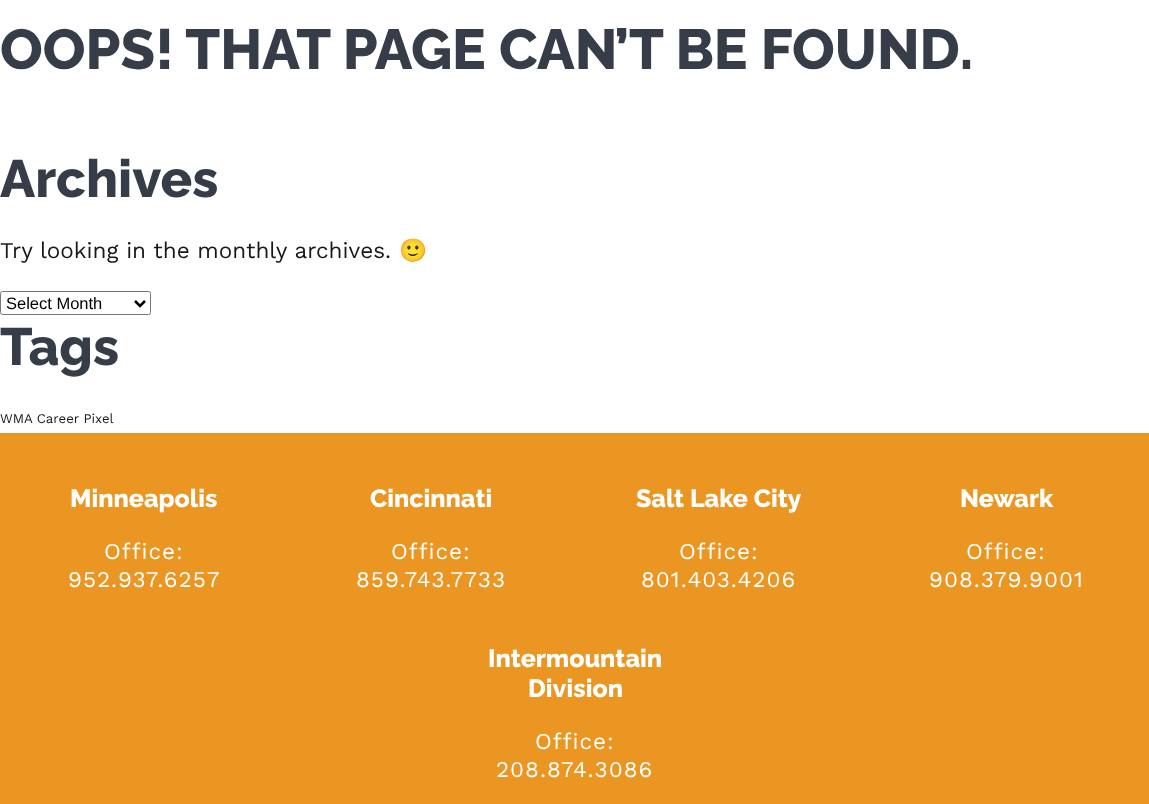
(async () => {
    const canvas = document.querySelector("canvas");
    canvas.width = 1149;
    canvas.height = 804;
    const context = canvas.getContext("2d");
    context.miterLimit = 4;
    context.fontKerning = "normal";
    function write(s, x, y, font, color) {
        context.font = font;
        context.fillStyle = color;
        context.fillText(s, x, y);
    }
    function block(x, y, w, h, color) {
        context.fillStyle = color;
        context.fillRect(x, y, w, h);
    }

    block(0, 0, 1149, 804, "rgb(255, 255, 255)");
    write("OOPS! THAT PAGE CAN’T BE FOUND.", 0, 69, "800 56.25px Raleway", "rgb(55, 61, 72)");
    write("Archives", 0, 197, "800 52.5px Raleway", "rgb(55, 61, 72)");
    write("Try looking in the monthly archives.", 0, 258, "22.5px Work Sans", "rgb(24, 24, 24)");
    write("🙂", 399, 258, "22.5px Noto Color Emoji", "rgb(24, 24, 24)");
    context.beginPath();
    context.roundRect(0.5, 291.5, 150, 23, 2);
    context.strokeStyle = "rgb(118, 118, 118)";
    context.stroke();
    context.beginPath();
    context.moveTo(135, 301);
    context.lineTo(140, 306);
    context.lineTo(145, 301);
    context.strokeStyle = "rgb(0, 0, 0)";
    context.lineWidth = 2.5;
    context.stroke();
    write("Select Month", 6, 309, "16.5px Liberation Sans", "rgb(0, 0, 0)");
    write("Tags", 0, 365, "800 52.5px Raleway", "rgb(55, 61, 72)");
    write("WMA Career Pixel", 0, 423, "13.25px Work Sans", "rgb(24, 24, 24)");
    block(0, 433, 1149, 371, "rgb(235, 150, 34)");
    write("Minneapolis", 70, 507, "800 25px Raleway", "rgb(255, 255, 255)");
    context.letterSpacing = "1px";
    write("Office:", 104, 559, "22.5px Work Sans", "rgb(255, 255, 255)");
    write("952.937.6257", 68, 587, "22.5px Work Sans", "rgb(255, 255, 255)");
    context.letterSpacing = "0px";
    write("Cincinnati", 370, 507, "800 25px Raleway", "rgb(255, 255, 255)");
    context.letterSpacing = "1px";
    write("Office:", 391, 559, "22.5px Work Sans", "rgb(255, 255, 255)");
    write("859.743.7733", 356, 587, "22.5px Work Sans", "rgb(255, 255, 255)");
    context.letterSpacing = "0px";
    write("Salt Lake City", 636, 507, "800 25px Raleway", "rgb(255, 255, 255)");
    context.letterSpacing = "1px";
    write("Office:", 679, 559, "22.5px Work Sans", "rgb(255, 255, 255)");
    write("801.403.4206", 641, 587, "22.5px Work Sans", "rgb(255, 255, 255)");
    context.letterSpacing = "0px";
    write("Newark", 960, 507, "800 25px Raleway", "rgb(255, 255, 255)");
    context.letterSpacing = "1px";
    write("Office:", 966, 559, "22.5px Work Sans", "rgb(255, 255, 255)");
    write("908.379.9001", 929, 587, "22.5px Work Sans", "rgb(255, 255, 255)");
    context.letterSpacing = "0px";
    write("Intermountain", 488, 667, "800 25px Raleway", "rgb(255, 255, 255)");
    write("Division", 528, 697, "800 25px Raleway", "rgb(255, 255, 255)");
    context.letterSpacing = "1px";
    write("Office:", 535, 749, "22.5px Work Sans", "rgb(255, 255, 255)");
    write("208.874.3086", 496, 777, "22.5px Work Sans", "rgb(255, 255, 255)");
})();
